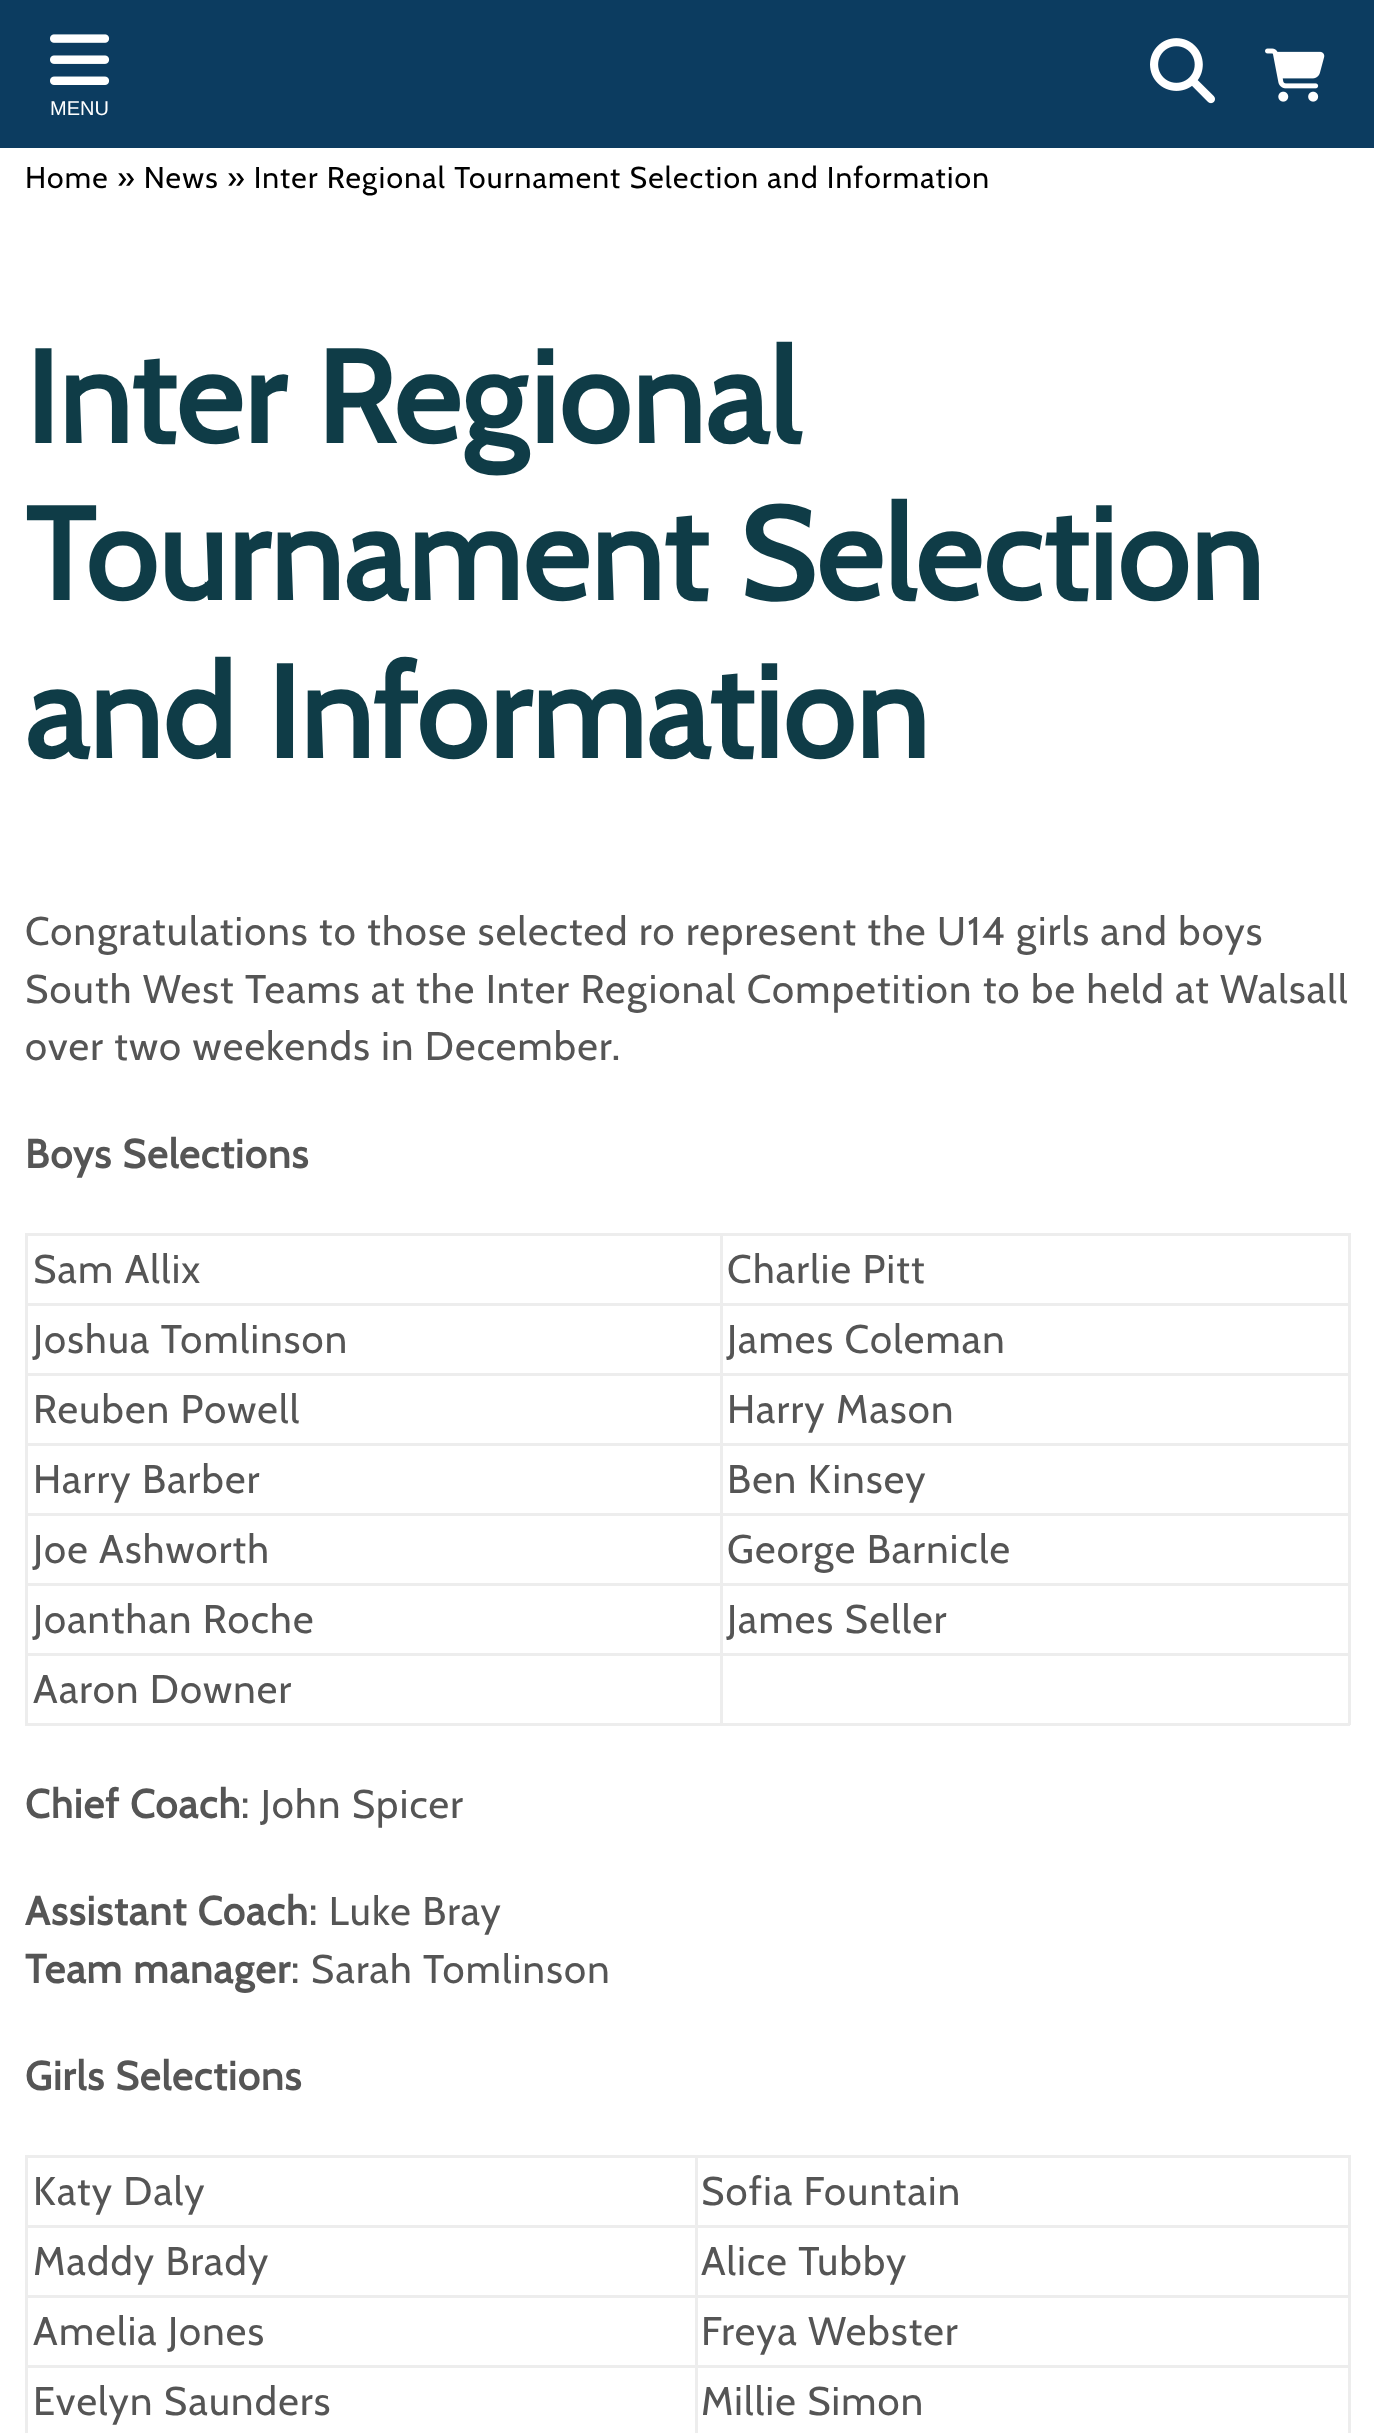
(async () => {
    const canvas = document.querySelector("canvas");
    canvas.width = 1374;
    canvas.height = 2433;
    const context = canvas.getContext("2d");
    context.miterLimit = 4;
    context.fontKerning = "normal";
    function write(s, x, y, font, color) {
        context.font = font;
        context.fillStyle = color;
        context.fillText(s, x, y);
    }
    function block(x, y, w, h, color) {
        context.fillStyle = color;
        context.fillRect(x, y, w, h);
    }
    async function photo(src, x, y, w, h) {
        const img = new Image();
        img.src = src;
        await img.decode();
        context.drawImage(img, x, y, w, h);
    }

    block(0, 0, 1374, 2433, "rgb(12, 60, 96)");
    await photo("media/1.png", 1150, 38, 65, 66);
    await photo("media/2.png", 1265, 48, 60, 54);
    await photo("media/3.png", 50, 34, 60, 51);
    write("MENU", 50, 115, "20px Liberation Sans", "rgb(255, 255, 255)");
    block(0, 148, 1374, 2285, "rgb(255, 255, 255)");
    context.letterSpacing = "1.25px";
    write("Home » News » Inter Regional Tournament Selection and Information", 25, 188, "30px Cabin", "rgb(0, 0, 0)");
    write("Inter Regional", 25, 443, "bold 130px Cabin", "rgb(15, 60, 71)");
    write("Tournament Selection", 25, 600, "bold 130px Cabin", "rgb(15, 60, 71)");
    write("and Information", 25, 758, "bold 130px Cabin", "rgb(15, 60, 71)");
    write("Congratulations to those selected ro represent the U14 girls and boys", 25, 945, "40px Cabin", "rgb(85, 85, 85)");
    write("South West Teams at the Inter Regional Competition to be held at Walsall", 25, 1003, "40px Cabin", "rgb(85, 85, 85)");
    write("over two weekends in December.", 25, 1060, "40px Cabin", "rgb(85, 85, 85)");
    write("Boys Selections", 25, 1168, "bold 40px Cabin", "rgb(85, 85, 85)");
    block(720, 1233, 630, 3, "rgb(237, 237, 237)");
    block(720, 1303, 630, 3, "rgb(237, 237, 237)");
    block(720, 1373, 630, 3, "rgb(237, 237, 237)");
    block(720, 1443, 630, 3, "rgb(237, 237, 237)");
    block(720, 1513, 630, 3, "rgb(237, 237, 237)");
    block(720, 1583, 630, 3, "rgb(237, 237, 237)");
    block(720, 1653, 630, 3, "rgb(237, 237, 237)");
    block(1348, 1653, 3, 72, "rgb(237, 237, 237)");
    block(720, 1723, 630, 3, "rgb(237, 237, 237)");
    block(720, 1653, 3, 72, "rgb(237, 237, 237)");
    block(25, 1653, 698, 3, "rgb(237, 237, 237)");
    block(720, 1583, 3, 72, "rgb(237, 237, 237)");
    block(25, 1583, 698, 3, "rgb(237, 237, 237)");
    block(720, 1513, 3, 72, "rgb(237, 237, 237)");
    block(25, 1513, 698, 3, "rgb(237, 237, 237)");
    block(720, 1443, 3, 72, "rgb(237, 237, 237)");
    block(25, 1443, 698, 3, "rgb(237, 237, 237)");
    block(720, 1373, 3, 72, "rgb(237, 237, 237)");
    block(25, 1373, 698, 3, "rgb(237, 237, 237)");
    block(720, 1303, 3, 72, "rgb(237, 237, 237)");
    block(25, 1303, 698, 3, "rgb(237, 237, 237)");
    block(720, 1233, 3, 72, "rgb(237, 237, 237)");
    block(25, 1233, 698, 3, "rgb(237, 237, 237)");
    block(25, 1723, 698, 3, "rgb(237, 237, 237)");
    block(25, 1653, 3, 72, "rgb(237, 237, 237)");
    block(25, 1583, 3, 72, "rgb(237, 237, 237)");
    block(25, 1513, 3, 72, "rgb(237, 237, 237)");
    block(25, 1443, 3, 72, "rgb(237, 237, 237)");
    block(25, 1373, 3, 72, "rgb(237, 237, 237)");
    block(25, 1303, 3, 72, "rgb(237, 237, 237)");
    block(25, 1233, 3, 72, "rgb(237, 237, 237)");
    write("Sam Allix", 33, 1283, "40px Cabin", "rgb(85, 85, 85)");
    block(1348, 1583, 3, 72, "rgb(237, 237, 237)");
    block(1348, 1513, 3, 72, "rgb(237, 237, 237)");
    block(1348, 1443, 3, 72, "rgb(237, 237, 237)");
    block(1348, 1373, 3, 72, "rgb(237, 237, 237)");
    block(1348, 1303, 3, 72, "rgb(237, 237, 237)");
    block(1348, 1233, 3, 72, "rgb(237, 237, 237)");
    write("Charlie Pitt", 727, 1283, "40px Cabin", "rgb(85, 85, 85)");
    write("Joshua Tomlinson", 33, 1353, "40px Cabin", "rgb(85, 85, 85)");
    write("James Coleman", 727, 1353, "40px Cabin", "rgb(85, 85, 85)");
    write("Reuben Powell", 33, 1423, "40px Cabin", "rgb(85, 85, 85)");
    write("Harry Mason", 727, 1423, "40px Cabin", "rgb(85, 85, 85)");
    write("Harry Barber", 33, 1493, "40px Cabin", "rgb(85, 85, 85)");
    write("Ben Kinsey", 727, 1493, "40px Cabin", "rgb(85, 85, 85)");
    write("Joe Ashworth", 33, 1563, "40px Cabin", "rgb(85, 85, 85)");
    write("George Barnicle", 727, 1563, "40px Cabin", "rgb(85, 85, 85)");
    write("Joanthan Roche", 33, 1633, "40px Cabin", "rgb(85, 85, 85)");
    write("James Seller", 727, 1633, "40px Cabin", "rgb(85, 85, 85)");
    write("Aaron Downer", 33, 1703, "40px Cabin", "rgb(85, 85, 85)");
    write("Chief Coach", 25, 1818, "bold 40px Cabin", "rgb(85, 85, 85)");
    write(": John Spicer", 241, 1818, "40px Cabin", "rgb(85, 85, 85)");
    write("Assistant Coach", 25, 1925, "bold 40px Cabin", "rgb(85, 85, 85)");
    write(": Luke Bray", 309, 1925, "40px Cabin", "rgb(85, 85, 85)");
    write("Team manager", 25, 1983, "bold 40px Cabin", "rgb(85, 85, 85)");
    write(": Sarah Tomlinson", 291, 1983, "40px Cabin", "rgb(85, 85, 85)");
    write("Girls Selections", 25, 2090, "bold 40px Cabin", "rgb(85, 85, 85)");
    block(695, 2155, 655, 3, "rgb(237, 237, 237)");
    block(695, 2225, 655, 3, "rgb(237, 237, 237)");
    block(695, 2295, 655, 3, "rgb(237, 237, 237)");
    block(695, 2365, 655, 3, "rgb(237, 237, 237)");
    block(695, 2365, 3, 68, "rgb(237, 237, 237)");
    block(25, 2365, 673, 3, "rgb(237, 237, 237)");
    block(695, 2295, 3, 73, "rgb(237, 237, 237)");
    block(25, 2295, 673, 3, "rgb(237, 237, 237)");
    block(695, 2225, 3, 73, "rgb(237, 237, 237)");
    block(25, 2225, 673, 3, "rgb(237, 237, 237)");
    block(695, 2155, 3, 73, "rgb(237, 237, 237)");
    block(25, 2155, 673, 3, "rgb(237, 237, 237)");
    block(25, 2365, 3, 68, "rgb(237, 237, 237)");
    block(25, 2295, 3, 73, "rgb(237, 237, 237)");
    block(25, 2225, 3, 73, "rgb(237, 237, 237)");
    block(25, 2155, 3, 73, "rgb(237, 237, 237)");
    write("Katy Daly", 33, 2205, "40px Cabin", "rgb(85, 85, 85)");
    block(1348, 2365, 3, 68, "rgb(237, 237, 237)");
    block(1348, 2295, 3, 73, "rgb(237, 237, 237)");
    block(1348, 2225, 3, 73, "rgb(237, 237, 237)");
    block(1348, 2155, 3, 73, "rgb(237, 237, 237)");
    write("Sofia Fountain", 701, 2205, "40px Cabin", "rgb(85, 85, 85)");
    write("Maddy Brady", 33, 2275, "40px Cabin", "rgb(85, 85, 85)");
    write("Alice Tubby", 701, 2275, "40px Cabin", "rgb(85, 85, 85)");
    write("Amelia Jones", 33, 2345, "40px Cabin", "rgb(85, 85, 85)");
    write("Freya Webster", 701, 2345, "40px Cabin", "rgb(85, 85, 85)");
    write("Evelyn Saunders", 33, 2415, "40px Cabin", "rgb(85, 85, 85)");
    write("Millie Simon", 701, 2415, "40px Cabin", "rgb(85, 85, 85)");
})();
